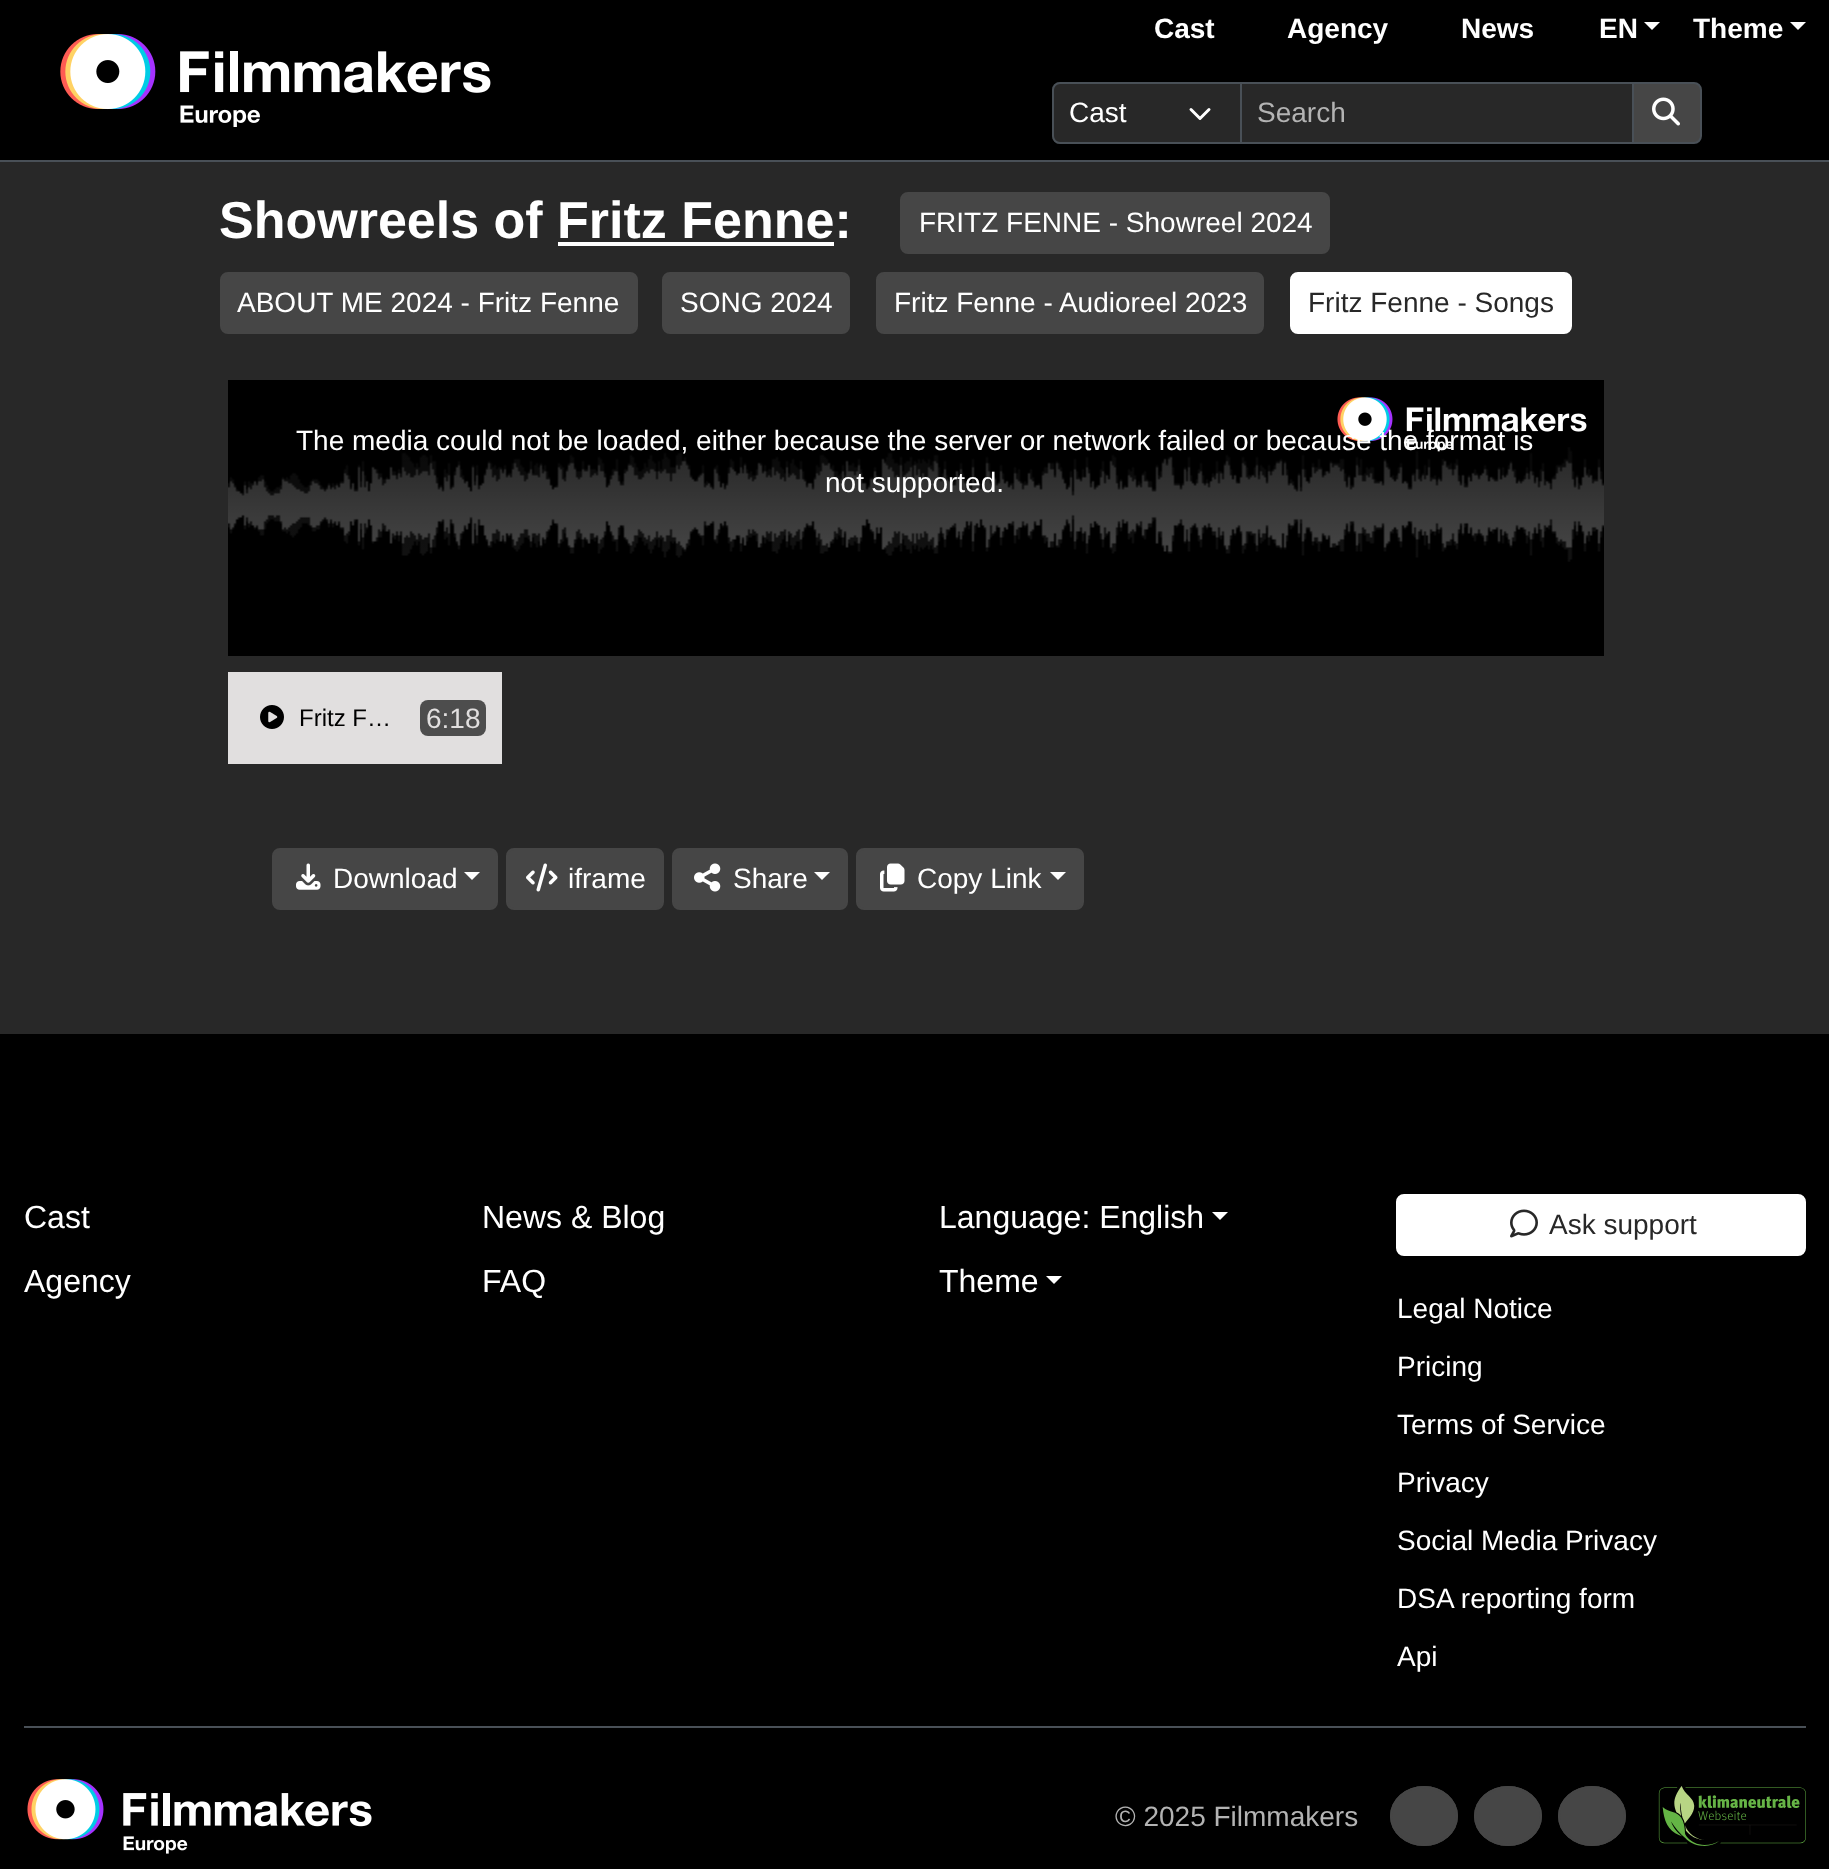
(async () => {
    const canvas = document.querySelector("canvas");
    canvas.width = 1829;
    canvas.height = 1869;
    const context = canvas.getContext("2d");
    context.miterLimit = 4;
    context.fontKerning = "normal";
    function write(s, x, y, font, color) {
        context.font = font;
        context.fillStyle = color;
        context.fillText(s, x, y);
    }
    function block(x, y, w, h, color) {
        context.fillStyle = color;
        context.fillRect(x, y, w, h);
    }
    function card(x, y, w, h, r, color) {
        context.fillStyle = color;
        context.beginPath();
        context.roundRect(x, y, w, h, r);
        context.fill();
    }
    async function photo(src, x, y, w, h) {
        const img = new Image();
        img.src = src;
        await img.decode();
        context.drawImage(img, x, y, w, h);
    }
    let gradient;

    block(0, 0, 1829, 1869, "rgb(40, 40, 40)");
    block(0, 0, 1829, 160, "rgb(0, 0, 0)");
    block(0, 160, 1829, 2, "rgb(73, 80, 87)");
    await photo("media/1.png", 60, 34, 431, 93);
    write("Cast", 1154, 38, "bold 28px Liberation Sans", "rgb(255, 255, 255)");
    write("Agency", 1287, 38, "bold 28px Liberation Sans", "rgb(255, 255, 255)");
    write("News", 1461, 38, "bold 28px Liberation Sans", "rgb(255, 255, 255)");
    write("EN", 1599, 38, "bold 28px Liberation Sans", "rgb(255, 255, 255)");
    context.beginPath();
    context.moveTo(1644, 22);
    context.lineTo(1660, 22);
    context.lineTo(1652, 30);
    context.closePath();
    context.fill();
    write("Theme", 1693, 38, "bold 28px Liberation Sans", "rgb(255, 255, 255)");
    context.beginPath();
    context.moveTo(1790, 22);
    context.lineTo(1806, 22);
    context.lineTo(1798, 30);
    context.closePath();
    context.fill();
    context.fillStyle = "rgb(40, 40, 40)";
    context.beginPath();
    context.roundRect(1052, 82, 190, 62, [8, 0, 0, 8]);
    context.fill();
    context.beginPath();
    context.moveTo(1191, 109.5);
    context.lineTo(1200, 118.5);
    context.lineTo(1209, 109.5);
    context.strokeStyle = "rgb(255, 255, 255)";
    context.lineWidth = 3;
    context.lineCap = "round";
    context.lineJoin = "round";
    context.stroke();
    context.beginPath();
    context.roundRect(1053, 83, 188, 60, [7, 0, 0, 7]);
    context.strokeStyle = "rgb(73, 80, 87)";
    context.lineWidth = 2;
    context.lineJoin = "miter";
    context.stroke();
    write("Cast", 1069, 122, "28px Liberation Sans", "rgb(255, 255, 255)");
    context.fillStyle = "rgb(40, 40, 40)";
    context.beginPath();
    context.rect(1241, 83, 392, 60);
    context.fill();
    context.stroke();
    write("Search", 1257, 122, "28px Liberation Sans", "rgb(179, 179, 179)");
    context.fillStyle = "rgb(70, 70, 70)";
    context.beginPath();
    context.roundRect(1633, 83, 68, 60, [0, 7, 7, 0]);
    context.fill();
    context.stroke();
    await photo("media/2.png", 1652, 97, 28, 29);
    write("Showreels of Fritz Fenne:", 219, 238, "bold 52px Liberation Sans", "rgb(255, 255, 255)");
    block(558, 242, 276, 4, "rgb(255, 255, 255)");
    context.fillStyle = "rgb(70, 70, 70)";
    context.beginPath();
    context.roundRect(901, 193, 428, 60, 7);
    context.fill();
    context.strokeStyle = "rgb(70, 70, 70)";
    context.stroke();
    write("FRITZ FENNE - Showreel 2024", 919, 232, "28px Liberation Sans", "rgb(255, 255, 255)");
    context.fillStyle = "rgb(70, 70, 70)";
    context.beginPath();
    context.roundRect(221, 273, 416, 60, 7);
    context.fill();
    context.stroke();
    write("ABOUT ME 2024 - Fritz Fenne", 237, 312, "28px Liberation Sans", "rgb(255, 255, 255)");
    context.fillStyle = "rgb(70, 70, 70)";
    context.beginPath();
    context.roundRect(663, 273, 186, 60, 7);
    context.fill();
    context.stroke();
    write("SONG 2024", 680, 312, "28px Liberation Sans", "rgb(255, 255, 255)");
    context.fillStyle = "rgb(70, 70, 70)";
    context.beginPath();
    context.roundRect(877, 273, 386, 60, 7);
    context.fill();
    context.stroke();
    write("Fritz Fenne - Audioreel 2023", 894, 312, "28px Liberation Sans", "rgb(255, 255, 255)");
    context.beginPath();
    context.roundRect(1291, 273, 280, 60, 7);
    context.fill();
    context.strokeStyle = "rgb(255, 255, 255)";
    context.stroke();
    write("Fritz Fenne - Songs", 1308, 312, "28px Liberation Sans", "rgb(40, 40, 40)");
    block(228, 380, 1376, 276, "rgb(0, 0, 0)");
    await photo("media/4.png", 228, 447, 1376, 115);
    gradient = context.createLinearGradient(916, 380, 916, 656);
    gradient.addColorStop(0, "rgba(0, 0, 0, 0.8)");
    gradient.addColorStop(1, "rgba(0, 0, 0, 0)");
    context.fillStyle = gradient;
    context.fillRect(228, 447, 1376, 114);
    await photo("media/3.png", 1337, 397, 250, 55);
    write("The media could not be loaded, either because the server or network failed or because the format is", 296, 450, "28px Liberation Sans", "rgb(255, 255, 255)");
    write("not supported.", 825, 492, "28px Liberation Sans", "rgb(255, 255, 255)");
    block(228, 672, 274, 92, "rgb(225, 223, 223)");
    await photo("media/5.png", 260, 705, 24, 24);
    write("Fritz F…", 299, 726, "24px Liberation Sans", "rgb(0, 0, 0)");
    card(420, 700, 66, 36, 8, "rgb(77, 77, 77)");
    write("6:18", 426, 728, "28px Liberation Sans", "rgb(225, 223, 223)");
    context.fillStyle = "rgb(70, 70, 70)";
    context.beginPath();
    context.roundRect(273, 849, 224, 60, 7);
    context.fill();
    context.strokeStyle = "rgb(70, 70, 70)";
    context.stroke();
    await photo("media/6.png", 296, 863, 25, 27);
    write("Download", 333, 888, "28px Liberation Sans", "rgb(255, 255, 255)");
    context.beginPath();
    context.moveTo(464, 872);
    context.lineTo(480, 872);
    context.lineTo(472, 880);
    context.closePath();
    context.fill();
    context.fillStyle = "rgb(70, 70, 70)";
    context.beginPath();
    context.roundRect(507, 849, 156, 60, 7);
    context.fill();
    context.stroke();
    await photo("media/7.png", 526, 863, 32, 29);
    write("iframe", 568, 888, "28px Liberation Sans", "rgb(255, 255, 255)");
    context.fillStyle = "rgb(70, 70, 70)";
    context.beginPath();
    context.roundRect(673, 849, 174, 60, 7);
    context.fill();
    context.stroke();
    await photo("media/8.png", 694, 863, 27, 29);
    write("Share", 733, 888, "28px Liberation Sans", "rgb(255, 255, 255)");
    context.beginPath();
    context.moveTo(814, 872);
    context.lineTo(830, 872);
    context.lineTo(822, 880);
    context.closePath();
    context.fill();
    context.fillStyle = "rgb(70, 70, 70)";
    context.beginPath();
    context.roundRect(857, 849, 226, 60, 7);
    context.fill();
    context.stroke();
    await photo("media/9.png", 880, 863, 25, 29);
    write("Copy Link", 917, 888, "28px Liberation Sans", "rgb(255, 255, 255)");
    context.beginPath();
    context.moveTo(1050, 872);
    context.lineTo(1066, 872);
    context.lineTo(1058, 880);
    context.closePath();
    context.fill();
    block(0, 1034, 1829, 835, "rgb(0, 0, 0)");
    write("Cast", 24, 1228, "32px Liberation Sans", "rgb(255, 255, 255)");
    write("Agency", 24, 1292, "32px Liberation Sans", "rgb(255, 255, 255)");
    write("News & Blog", 482, 1228, "32px Liberation Sans", "rgb(255, 255, 255)");
    write("FAQ", 482, 1292, "32px Liberation Sans", "rgb(255, 255, 255)");
    write("Language: English", 939, 1228, "32px Liberation Sans", "rgb(255, 255, 255)");
    context.beginPath();
    context.moveTo(1212, 1212);
    context.lineTo(1228, 1212);
    context.lineTo(1220, 1220);
    context.closePath();
    context.fill();
    write("Theme", 939, 1292, "32px Liberation Sans", "rgb(255, 255, 255)");
    context.beginPath();
    context.moveTo(1046, 1276);
    context.lineTo(1062, 1276);
    context.lineTo(1054, 1284);
    context.closePath();
    context.fill();
    context.beginPath();
    context.roundRect(1397, 1195, 408, 60, 7);
    context.fill();
    context.strokeStyle = "rgb(255, 255, 255)";
    context.stroke();
    await photo("media/10.png", 1510, 1209, 28, 29);
    write("Ask support", 1549, 1234, "28px Liberation Sans", "rgb(40, 40, 40)");
    write("Legal Notice", 1397, 1318, "28px Liberation Sans", "rgb(255, 255, 255)");
    write("Pricing", 1397, 1376, "28px Liberation Sans", "rgb(255, 255, 255)");
    write("Terms of Service", 1397, 1434, "28px Liberation Sans", "rgb(255, 255, 255)");
    write("Privacy", 1397, 1492, "28px Liberation Sans", "rgb(255, 255, 255)");
    write("Social Media Privacy", 1397, 1550, "28px Liberation Sans", "rgb(255, 255, 255)");
    write("DSA reporting form", 1397, 1608, "28px Liberation Sans", "rgb(255, 255, 255)");
    write("Api", 1397, 1666, "28px Liberation Sans", "rgb(255, 255, 255)");
    block(24, 1726, 1782, 2, "rgb(73, 80, 87)");
    await photo("media/11.png", 27, 1779, 345, 75);
    write("© 2025 Filmmakers", 1115, 1826, "28px Liberation Sans", "rgb(179, 179, 179)");
    context.fillStyle = "rgb(70, 70, 70)";
    context.beginPath();
    context.ellipse(1424, 1816, 34, 30, 0, 0, Math.PI * 2);
    context.fill();
    context.beginPath();
    context.moveTo(1424, 1787);
    context.bezierCurveTo(1442, 1787, 1457, 1800, 1457, 1816);
    context.bezierCurveTo(1457, 1832, 1442, 1845, 1424, 1845);
    context.bezierCurveTo(1406, 1845, 1391, 1832, 1391, 1816);
    context.bezierCurveTo(1391, 1800, 1406, 1787, 1424, 1787);
    context.closePath();
    context.strokeStyle = "rgb(70, 70, 70)";
    context.lineCap = "butt";
    context.stroke();
    context.beginPath();
    context.ellipse(1508, 1816, 34, 30, 0, 0, Math.PI * 2);
    context.fill();
    context.beginPath();
    context.moveTo(1508, 1787);
    context.bezierCurveTo(1526, 1787, 1541, 1800, 1541, 1816);
    context.bezierCurveTo(1541, 1832, 1526, 1845, 1508, 1845);
    context.bezierCurveTo(1490, 1845, 1475, 1832, 1475, 1816);
    context.bezierCurveTo(1475, 1800, 1490, 1787, 1508, 1787);
    context.closePath();
    context.stroke();
    context.beginPath();
    context.ellipse(1592, 1816, 34, 30, 0, 0, Math.PI * 2);
    context.fill();
    context.beginPath();
    context.moveTo(1592, 1787);
    context.bezierCurveTo(1610, 1787, 1625, 1800, 1625, 1816);
    context.bezierCurveTo(1625, 1832, 1610, 1845, 1592, 1845);
    context.bezierCurveTo(1574, 1845, 1559, 1832, 1559, 1816);
    context.bezierCurveTo(1559, 1800, 1574, 1787, 1592, 1787);
    context.closePath();
    context.stroke();
    await photo("media/12.png", 1658, 1786, 148, 60);
})();
